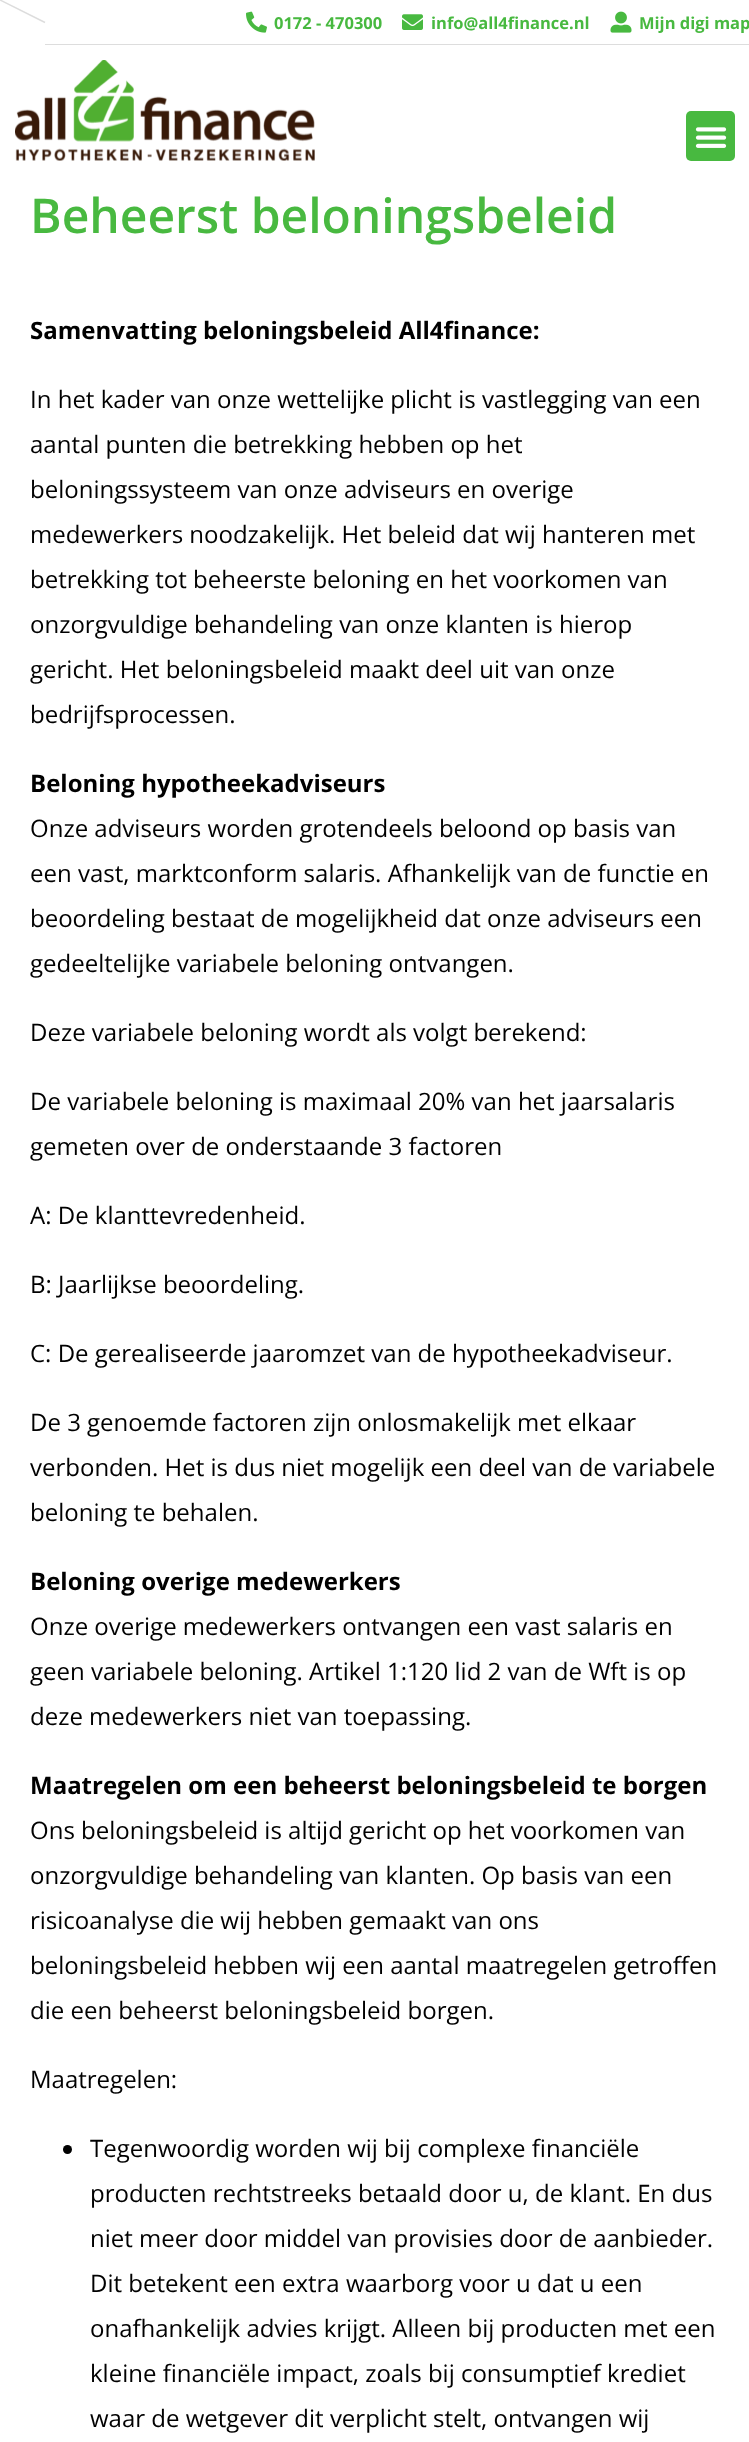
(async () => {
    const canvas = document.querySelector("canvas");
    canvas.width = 749;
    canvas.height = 2442;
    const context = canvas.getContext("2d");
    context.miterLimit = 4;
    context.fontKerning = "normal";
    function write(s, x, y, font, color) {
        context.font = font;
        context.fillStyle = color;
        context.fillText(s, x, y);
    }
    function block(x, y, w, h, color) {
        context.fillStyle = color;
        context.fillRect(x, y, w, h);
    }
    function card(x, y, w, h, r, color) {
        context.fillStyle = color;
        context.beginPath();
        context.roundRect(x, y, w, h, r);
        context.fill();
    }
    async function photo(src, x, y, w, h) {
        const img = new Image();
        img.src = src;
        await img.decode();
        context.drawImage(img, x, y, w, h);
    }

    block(0, 0, 749, 2442, "rgb(255, 255, 255)");
    context.beginPath();
    context.moveTo(0, 0);
    context.lineTo(45, 22.5);
    context.strokeStyle = "rgb(221, 221, 221)";
    context.lineWidth = 1.5;
    context.stroke();
    await photo("media/1.png", 246, 11, 21, 22);
    write("0172 - 470300", 274, 29, "bold 16.5px Open Sans", "rgb(72, 185, 64)");
    await photo("media/2.png", 402, 14, 21, 16);
    write("info@all4finance.nl", 431, 29, "bold 16.5px Open Sans", "rgb(72, 185, 64)");
    await photo("media/3.png", 610, 11, 22, 22);
    write("Mijn digi map", 639, 29, "bold 16.5px Open Sans", "rgb(72, 185, 64)");
    block(45, 44, 704, 1, "rgb(221, 221, 221)");
    await photo("media/4.png", 15, 60, 300, 101);
    card(686, 111, 49, 50, 5, "rgb(72, 185, 64)");
    await photo("media/5.png", 695, 127, 32, 21);
    write("Beheerst beloningsbeleid", 30, 233, "600 48px Open Sans", "rgb(72, 185, 64)");
    write("Samenvatting beloningsbeleid All4finance:", 30, 339, "bold 24px Open Sans", "rgb(0, 0, 0)");
    write("In het kader van onze wettelijke plicht is vastlegging van een", 30, 408, "24px Open Sans", "rgb(0, 0, 0)");
    write("aantal punten die betrekking hebben op het", 30, 453, "24px Open Sans", "rgb(0, 0, 0)");
    write("beloningssysteem van onze adviseurs en overige", 30, 498, "24px Open Sans", "rgb(0, 0, 0)");
    write("medewerkers noodzakelijk. Het beleid dat wij hanteren met", 30, 543, "24px Open Sans", "rgb(0, 0, 0)");
    write("betrekking tot beheerste beloning en het voorkomen van", 30, 588, "24px Open Sans", "rgb(0, 0, 0)");
    write("onzorgvuldige behandeling van onze klanten is hierop", 30, 633, "24px Open Sans", "rgb(0, 0, 0)");
    write("gericht. Het beloningsbeleid maakt deel uit van onze", 30, 678, "24px Open Sans", "rgb(0, 0, 0)");
    write("bedrijfsprocessen.", 30, 723, "24px Open Sans", "rgb(0, 0, 0)");
    write("Beloning hypotheekadviseurs", 30, 792, "bold 24px Open Sans", "rgb(0, 0, 0)");
    write("Onze adviseurs worden grotendeels beloond op basis van", 30, 837, "24px Open Sans", "rgb(0, 0, 0)");
    write("een vast, marktconform salaris. Afhankelijk van de functie en", 30, 882, "24px Open Sans", "rgb(0, 0, 0)");
    write("beoordeling bestaat de mogelijkheid dat onze adviseurs een", 30, 927, "24px Open Sans", "rgb(0, 0, 0)");
    write("gedeeltelijke variabele beloning ontvangen.", 30, 972, "24px Open Sans", "rgb(0, 0, 0)");
    write("Deze variabele beloning wordt als volgt berekend:", 30, 1041, "24px Open Sans", "rgb(0, 0, 0)");
    write("De variabele beloning is maximaal 20% van het jaarsalaris", 30, 1110, "24px Open Sans", "rgb(0, 0, 0)");
    write("gemeten over de onderstaande 3 factoren", 30, 1155, "24px Open Sans", "rgb(0, 0, 0)");
    write("A: De klanttevredenheid.", 30, 1224, "24px Open Sans", "rgb(0, 0, 0)");
    write("B: Jaarlijkse beoordeling.", 30, 1293, "24px Open Sans", "rgb(0, 0, 0)");
    write("C: De gerealiseerde jaaromzet van de hypotheekadviseur.", 30, 1362, "24px Open Sans", "rgb(0, 0, 0)");
    write("De 3 genoemde factoren zijn onlosmakelijk met elkaar", 30, 1431, "24px Open Sans", "rgb(0, 0, 0)");
    write("verbonden. Het is dus niet mogelijk een deel van de variabele", 30, 1476, "24px Open Sans", "rgb(0, 0, 0)");
    write("beloning te behalen.", 30, 1521, "24px Open Sans", "rgb(0, 0, 0)");
    write("Beloning overige medewerkers", 30, 1590, "bold 24px Open Sans", "rgb(0, 0, 0)");
    write("Onze overige medewerkers ontvangen een vast salaris en", 30, 1635, "24px Open Sans", "rgb(0, 0, 0)");
    write("geen variabele beloning. Artikel 1:120 lid 2 van de Wft is op", 30, 1680, "24px Open Sans", "rgb(0, 0, 0)");
    write("deze medewerkers niet van toepassing.", 30, 1725, "24px Open Sans", "rgb(0, 0, 0)");
    write("Maatregelen om een beheerst beloningsbeleid te borgen", 30, 1794, "bold 24px Open Sans", "rgb(0, 0, 0)");
    write("Ons beloningsbeleid is altijd gericht op het voorkomen van", 30, 1839, "24px Open Sans", "rgb(0, 0, 0)");
    write("onzorgvuldige behandeling van klanten. Op basis van een", 30, 1884, "24px Open Sans", "rgb(0, 0, 0)");
    write("risicoanalyse die wij hebben gemaakt van ons", 30, 1929, "24px Open Sans", "rgb(0, 0, 0)");
    write("beloningsbeleid hebben wij een aantal maatregelen getroffen", 30, 1974, "24px Open Sans", "rgb(0, 0, 0)");
    write("die een beheerst beloningsbeleid borgen.", 30, 2019, "24px Open Sans", "rgb(0, 0, 0)");
    write("Maatregelen:", 30, 2088, "24px Open Sans", "rgb(0, 0, 0)");
    context.beginPath();
    context.arc(67.5, 2149.5, 4.5, 0, Math.PI * 2);
    context.fill();
    write("Tegenwoordig worden wij bij complexe financiële", 90, 2157, "24px Open Sans", "rgb(0, 0, 0)");
    write("producten rechtstreeks betaald door u, de klant. En dus", 90, 2202, "24px Open Sans", "rgb(0, 0, 0)");
    write("niet meer door middel van provisies door de aanbieder.", 90, 2247, "24px Open Sans", "rgb(0, 0, 0)");
    write("Dit betekent een extra waarborg voor u dat u een", 90, 2292, "24px Open Sans", "rgb(0, 0, 0)");
    write("onafhankelijk advies krijgt. Alleen bij producten met een", 90, 2337, "24px Open Sans", "rgb(0, 0, 0)");
    write("kleine financiële impact, zoals bij consumptief krediet", 90, 2382, "24px Open Sans", "rgb(0, 0, 0)");
    write("waar de wetgever dit verplicht stelt, ontvangen wij", 90, 2427, "24px Open Sans", "rgb(0, 0, 0)");
})();
